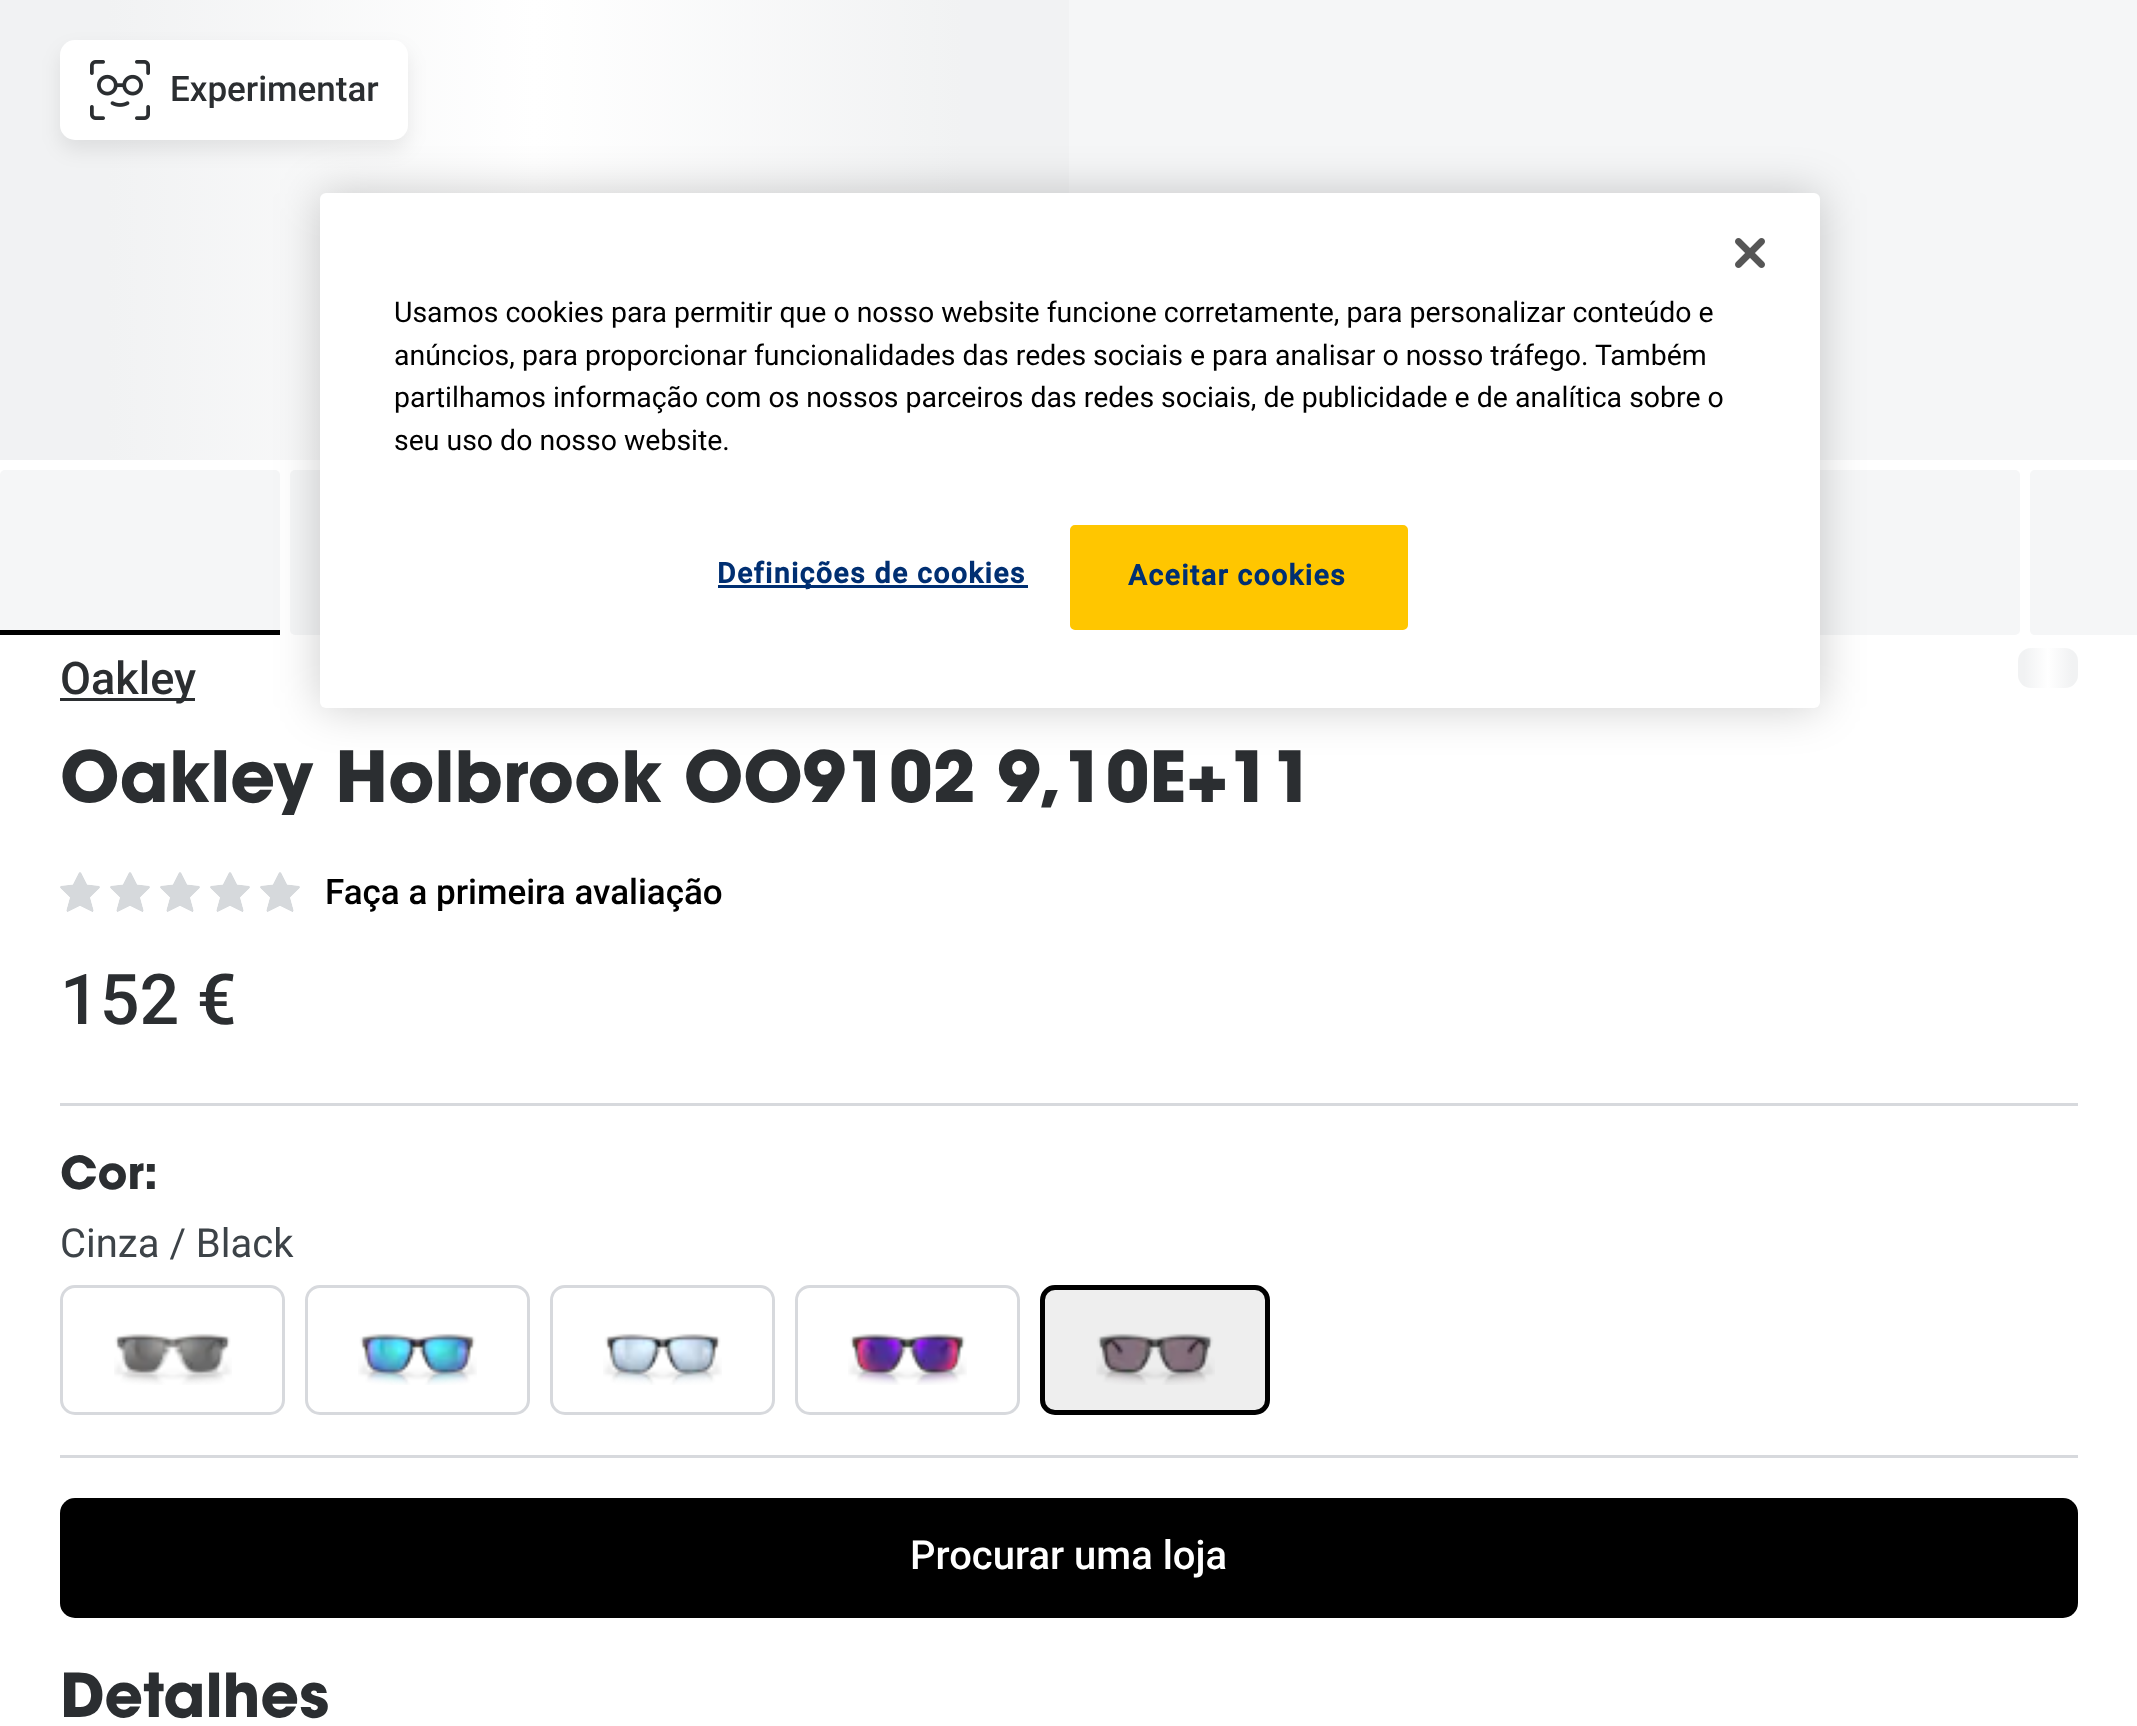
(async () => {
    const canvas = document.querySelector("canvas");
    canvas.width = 2137;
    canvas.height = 1726;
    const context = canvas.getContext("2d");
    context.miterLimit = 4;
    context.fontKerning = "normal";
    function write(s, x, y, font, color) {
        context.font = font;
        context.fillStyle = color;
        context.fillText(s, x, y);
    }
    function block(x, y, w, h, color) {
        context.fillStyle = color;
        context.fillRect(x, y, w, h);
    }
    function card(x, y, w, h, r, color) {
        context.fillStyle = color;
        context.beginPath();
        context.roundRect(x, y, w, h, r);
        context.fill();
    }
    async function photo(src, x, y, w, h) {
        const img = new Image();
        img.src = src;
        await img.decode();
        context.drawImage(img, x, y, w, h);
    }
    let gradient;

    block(0, 0, 2137, 1726, "rgb(255, 255, 255)");
    block(1069, 0, 1068, 460, "rgb(245, 246, 247)");
    gradient = context.createLinearGradient(0, -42, 1069, -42);
    gradient.addColorStop(0.1, "rgb(241, 242, 243)");
    gradient.addColorStop(0.5, "rgb(255, 255, 255)");
    gradient.addColorStop(0.9, "rgb(241, 242, 243)");
    context.fillStyle = gradient;
    context.fillRect(0, 0, 1069, 460);
    card(0, 470, 280, 165, 5, "rgb(245, 246, 247)");
    block(0, 630, 280, 5, "rgb(0, 0, 0)");
    card(290, 470, 280, 165, 5, "rgb(245, 246, 247)");
    card(1740, 470, 280, 165, 5, "rgb(245, 246, 247)");
    context.beginPath();
    context.moveTo(2035, 470);
    context.lineTo(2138, 470);
    context.lineTo(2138, 635);
    context.lineTo(2035, 635);
    context.bezierCurveTo(2032, 635, 2030, 633, 2030, 630);
    context.lineTo(2030, 475);
    context.bezierCurveTo(2030, 472, 2032, 470, 2035, 470);
    context.closePath();
    context.fill();
    context.fillStyle = "rgba(0, 0, 0, 0.08)";
    context.filter = "blur(10px)";
    context.beginPath();
    context.roundRect(60, 50, 348, 100, 15);
    context.fill();
    context.filter = "none";
    card(60, 40, 348, 100, 15, "rgb(255, 255, 255)");
    await photo("media/1.png", 90, 60, 60, 60);
    write("Experimentar", 170, 101, "500 35px Roboto", "rgb(43, 46, 49)");
    block(60, 698, 135, 3, "rgb(43, 46, 49)");
    write("Oakley", 60, 694, "500 45px Roboto", "rgb(43, 46, 49)");
    gradient = context.createLinearGradient(2018, 648, 2078, 648);
    gradient.addColorStop(0.1, "rgb(241, 242, 243)");
    gradient.addColorStop(0.5, "rgb(255, 255, 255)");
    gradient.addColorStop(0.9, "rgb(241, 242, 243)");
    context.fillStyle = gradient;
    context.beginPath();
    context.roundRect(2018, 648, 60, 40, 13);
    context.fill();
    write("Oakley Holbrook OO9102 9,10E+11", 60, 802, "bold 70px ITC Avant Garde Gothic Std", "rgb(43, 46, 49)");
    await photo("media/2.png", 60, 872, 40, 40);
    await photo("media/2.png", 110, 872, 40, 40);
    await photo("media/2.png", 160, 872, 40, 40);
    await photo("media/2.png", 210, 872, 40, 40);
    await photo("media/2.png", 260, 872, 40, 40);
    write("Faça a primeira avaliação", 325, 904, "500 35px Roboto", "rgb(0, 0, 0)");
    write("152 €", 60, 1024, "500 70px Roboto", "rgb(43, 46, 49)");
    block(60, 1103, 2018, 3, "rgb(215, 217, 221)");
    write("Cor:", 60, 1189, "bold 45px ITC Avant Garde Gothic Std", "rgb(43, 46, 49)");
    write("Cinza / Black", 60, 1257, "40px Roboto", "rgb(61, 67, 72)");
    context.beginPath();
    context.roundRect(61.5, 1286.5, 222, 127, 13.5);
    context.strokeStyle = "rgb(215, 217, 221)";
    context.lineWidth = 3;
    context.stroke();
    await photo("media/3.png", 114, 1333, 118, 52);
    context.beginPath();
    context.roundRect(306.5, 1286.5, 222, 127, 13.5);
    context.stroke();
    await photo("media/4.png", 358, 1333, 119, 52);
    context.beginPath();
    context.roundRect(551.5, 1286.5, 222, 127, 13.5);
    context.stroke();
    await photo("media/5.png", 603, 1333, 119, 52);
    context.beginPath();
    context.roundRect(796.5, 1286.5, 222, 127, 13.5);
    context.stroke();
    await photo("media/6.png", 848, 1333, 119, 52);
    context.fillStyle = "rgb(238, 238, 238)";
    context.beginPath();
    context.roundRect(1042.5, 1287.5, 225, 125, 12.5);
    context.fill();
    context.strokeStyle = "rgb(0, 0, 0)";
    context.lineWidth = 5;
    context.stroke();
    await photo("media/7.png", 1096, 1333, 119, 52);
    block(60, 1455, 2018, 3, "rgb(215, 217, 221)");
    card(60, 1498, 2018, 120, 15, "rgb(0, 0, 0)");
    write("Procurar uma loja", 910, 1569, "500 40px Roboto", "rgb(255, 255, 255)");
    write("Detalhes", 60, 1717, "bold 60px ITC Avant Garde Gothic Std", "rgb(43, 46, 49)");
    context.fillStyle = "rgba(0, 0, 0, 0.2)";
    context.filter = "blur(22.5px)";
    context.beginPath();
    context.roundRect(320, 193, 1500, 515, 6);
    context.fill();
    context.filter = "none";
    card(320, 193, 1500, 515, 6, "rgb(255, 255, 255)");
    await photo("media/8.png", 1735, 238, 30, 30);
    write("Usamos cookies para permitir que o nosso website funcione corretamente, para personalizar conteúdo e", 394, 322, "28.45px Roboto", "rgb(0, 0, 0)");
    write("anúncios, para proporcionar funcionalidades das redes sociais e para analisar o nosso tráfego. Também", 394, 365, "28.45px Roboto", "rgb(0, 0, 0)");
    write("partilhamos informação com os nossos parceiros das redes sociais, de publicidade e de analítica sobre o", 394, 407, "28.45px Roboto", "rgb(0, 0, 0)");
    write("seu uso do nosso website.", 394, 450, "28.45px Roboto", "rgb(0, 0, 0)");
    block(718, 585, 310, 3, "rgb(0, 47, 114)");
    context.letterSpacing = "1.4px";
    write("Definições de cookies", 717, 583, "bold 28.45px Roboto", "rgb(0, 47, 114)");
    context.fillStyle = "rgb(255, 198, 0)";
    context.beginPath();
    context.roundRect(1071.5, 526.5, 335, 102, 3.5);
    context.fill();
    context.strokeStyle = "rgb(255, 198, 0)";
    context.lineWidth = 3;
    context.stroke();
    write("Aceitar cookies", 1128, 585, "bold 28.45px Roboto", "rgb(0, 47, 114)");
})();
